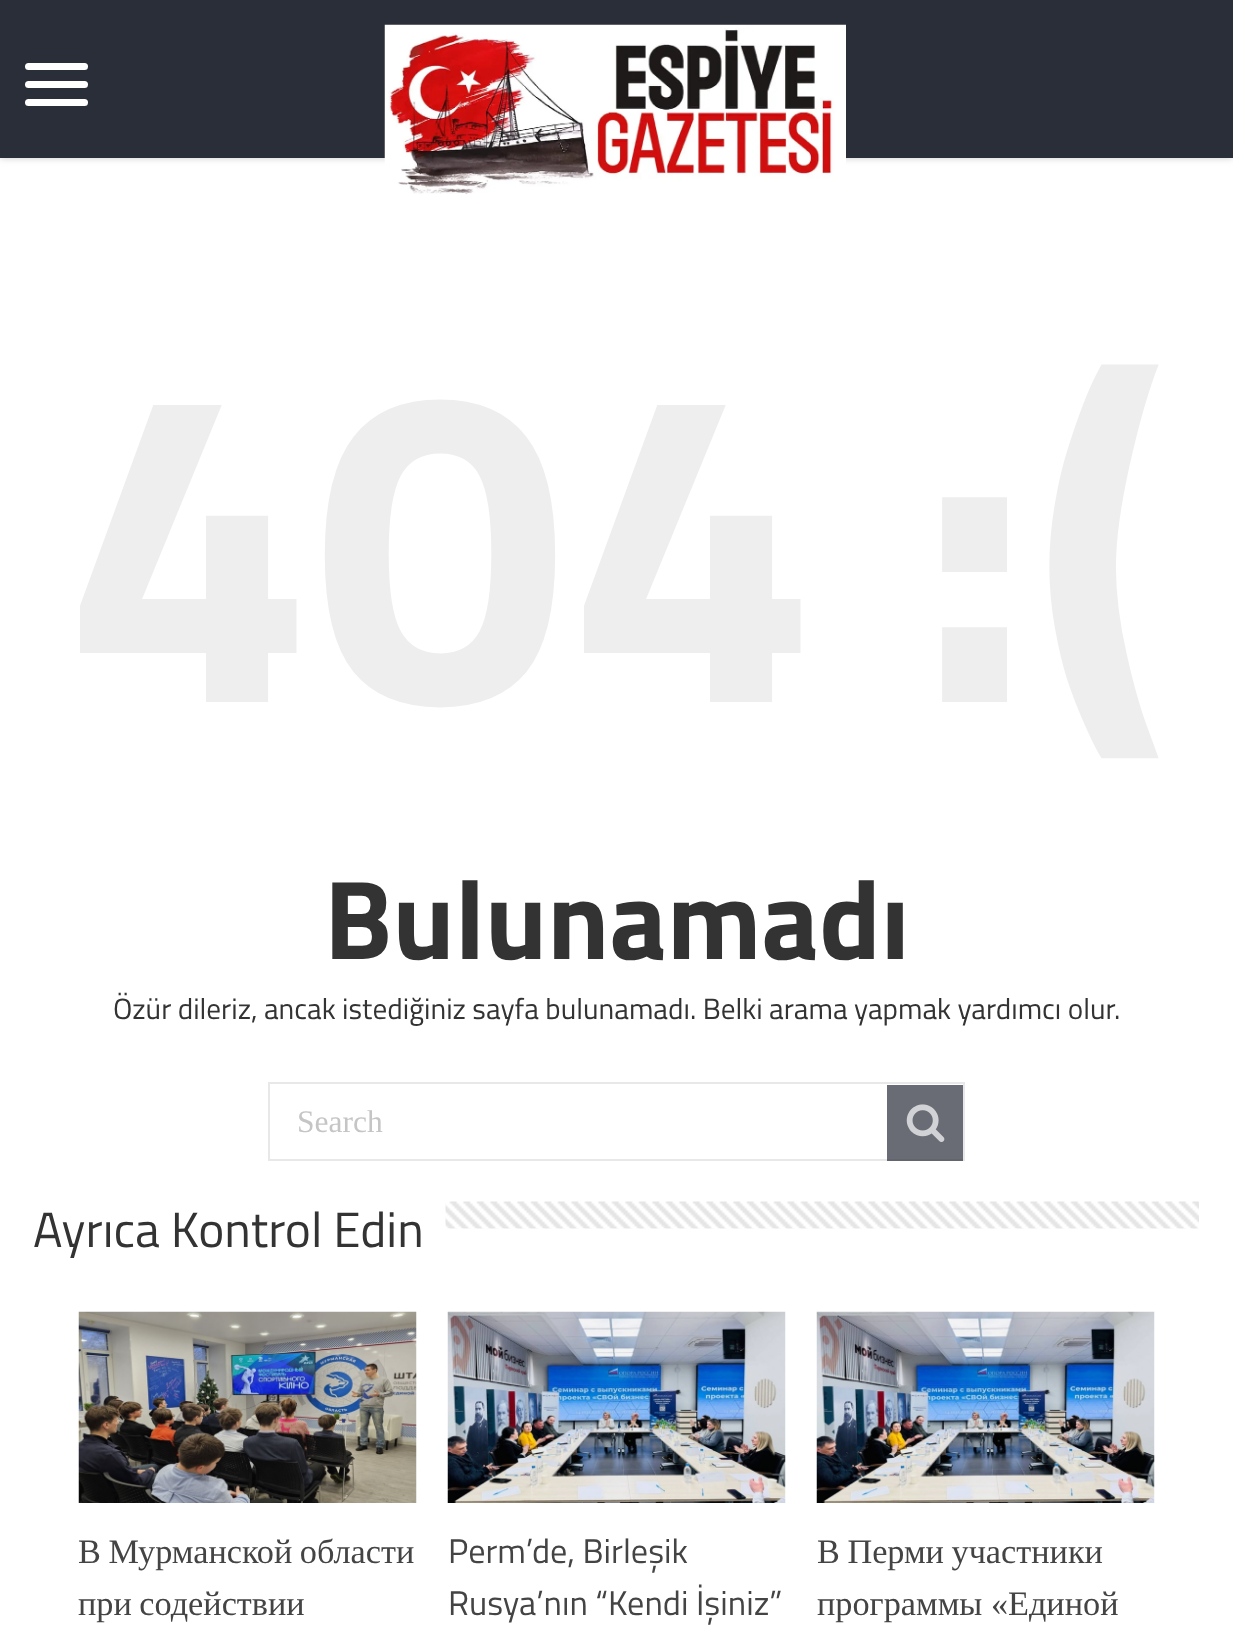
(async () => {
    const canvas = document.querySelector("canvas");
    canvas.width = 1233;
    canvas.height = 1638;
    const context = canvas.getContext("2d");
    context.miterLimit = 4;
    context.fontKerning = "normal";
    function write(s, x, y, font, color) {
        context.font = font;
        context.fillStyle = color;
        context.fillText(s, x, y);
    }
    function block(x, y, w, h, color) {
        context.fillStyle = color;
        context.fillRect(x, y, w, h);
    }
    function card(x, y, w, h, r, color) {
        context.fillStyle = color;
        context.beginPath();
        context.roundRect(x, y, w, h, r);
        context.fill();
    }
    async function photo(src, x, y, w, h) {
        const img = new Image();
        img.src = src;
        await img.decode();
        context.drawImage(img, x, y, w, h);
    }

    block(0, 0, 1233, 1638, "rgb(255, 255, 255)");
    context.fillStyle = "rgb(202, 202, 202)";
    context.filter = "blur(3.5px)";
    context.beginPath();
    context.rect(0, 0, 1233, 158);
    context.fill();
    context.filter = "none";
    block(0, 0, 1233, 158, "rgb(42, 46, 57)");
    card(25, 63, 63, 7, 3.5, "rgb(255, 255, 255)");
    card(25, 81, 63, 7, 3.5, "rgb(255, 255, 255)");
    card(25, 99, 63, 7, 3.5, "rgb(255, 255, 255)");
    await photo("media/1.png", 384, 24, 462, 170);
    write("404 :(", 62, 702, "bold 450px Titillium Web", "rgb(238, 238, 238)");
    write("Bulunamadı", 324, 959, "bold 112.5px Titillium Web", "rgb(51, 51, 51)");
    write("Özür dileriz, ancak istediğiniz sayfa bulunamadı. Belki arama yapmak yardımcı olur.", 113, 1019, "29.25px Titillium Web", "rgb(51, 51, 51)");
    context.strokeStyle = "rgb(232, 232, 232)";
    context.lineWidth = 2;
    context.strokeRect(269, 1083, 695, 77);
    write("Search", 297, 1132, "31.5px Liberation Serif", "rgb(197, 197, 197)");
    block(887, 1085, 76, 76, "rgba(42, 46, 57, 0.7)");
    await photo("media/2.png", 906, 1104, 39, 38);
    write("Ayrıca Kontrol Edin", 33, 1247, "49.5px Titillium Web", "rgb(51, 51, 51)");
    await photo("media/3.png", 445, 1201, 754, 28);
    await photo("media/4.png", 78, 1311, 339, 192);
    context.wordSpacing = "-1px";
    write("В Мурманской области", 78, 1563, "34.25px Liberation Serif", "rgb(68, 68, 68)");
    write("при содействии", 78, 1615, "34.25px Liberation Serif", "rgb(68, 68, 68)");
    await photo("media/5.png", 447, 1311, 339, 192);
    context.wordSpacing = "0px";
    write("Perm’de, Birleşik", 448, 1563, "34.25px Titillium Web", "rgb(68, 68, 68)");
    write("Rusya’nın “Kendi İşiniz”", 448, 1615, "34.25px Titillium Web", "rgb(68, 68, 68)");
    await photo("media/6.png", 816, 1311, 339, 192);
    context.wordSpacing = "-1px";
    write("В Перми участники", 817, 1563, "34.25px Liberation Serif", "rgb(68, 68, 68)");
    context.wordSpacing = "0px";
    write("программы «Единой", 817, 1615, "34.25px Liberation Serif", "rgb(68, 68, 68)");
})();
